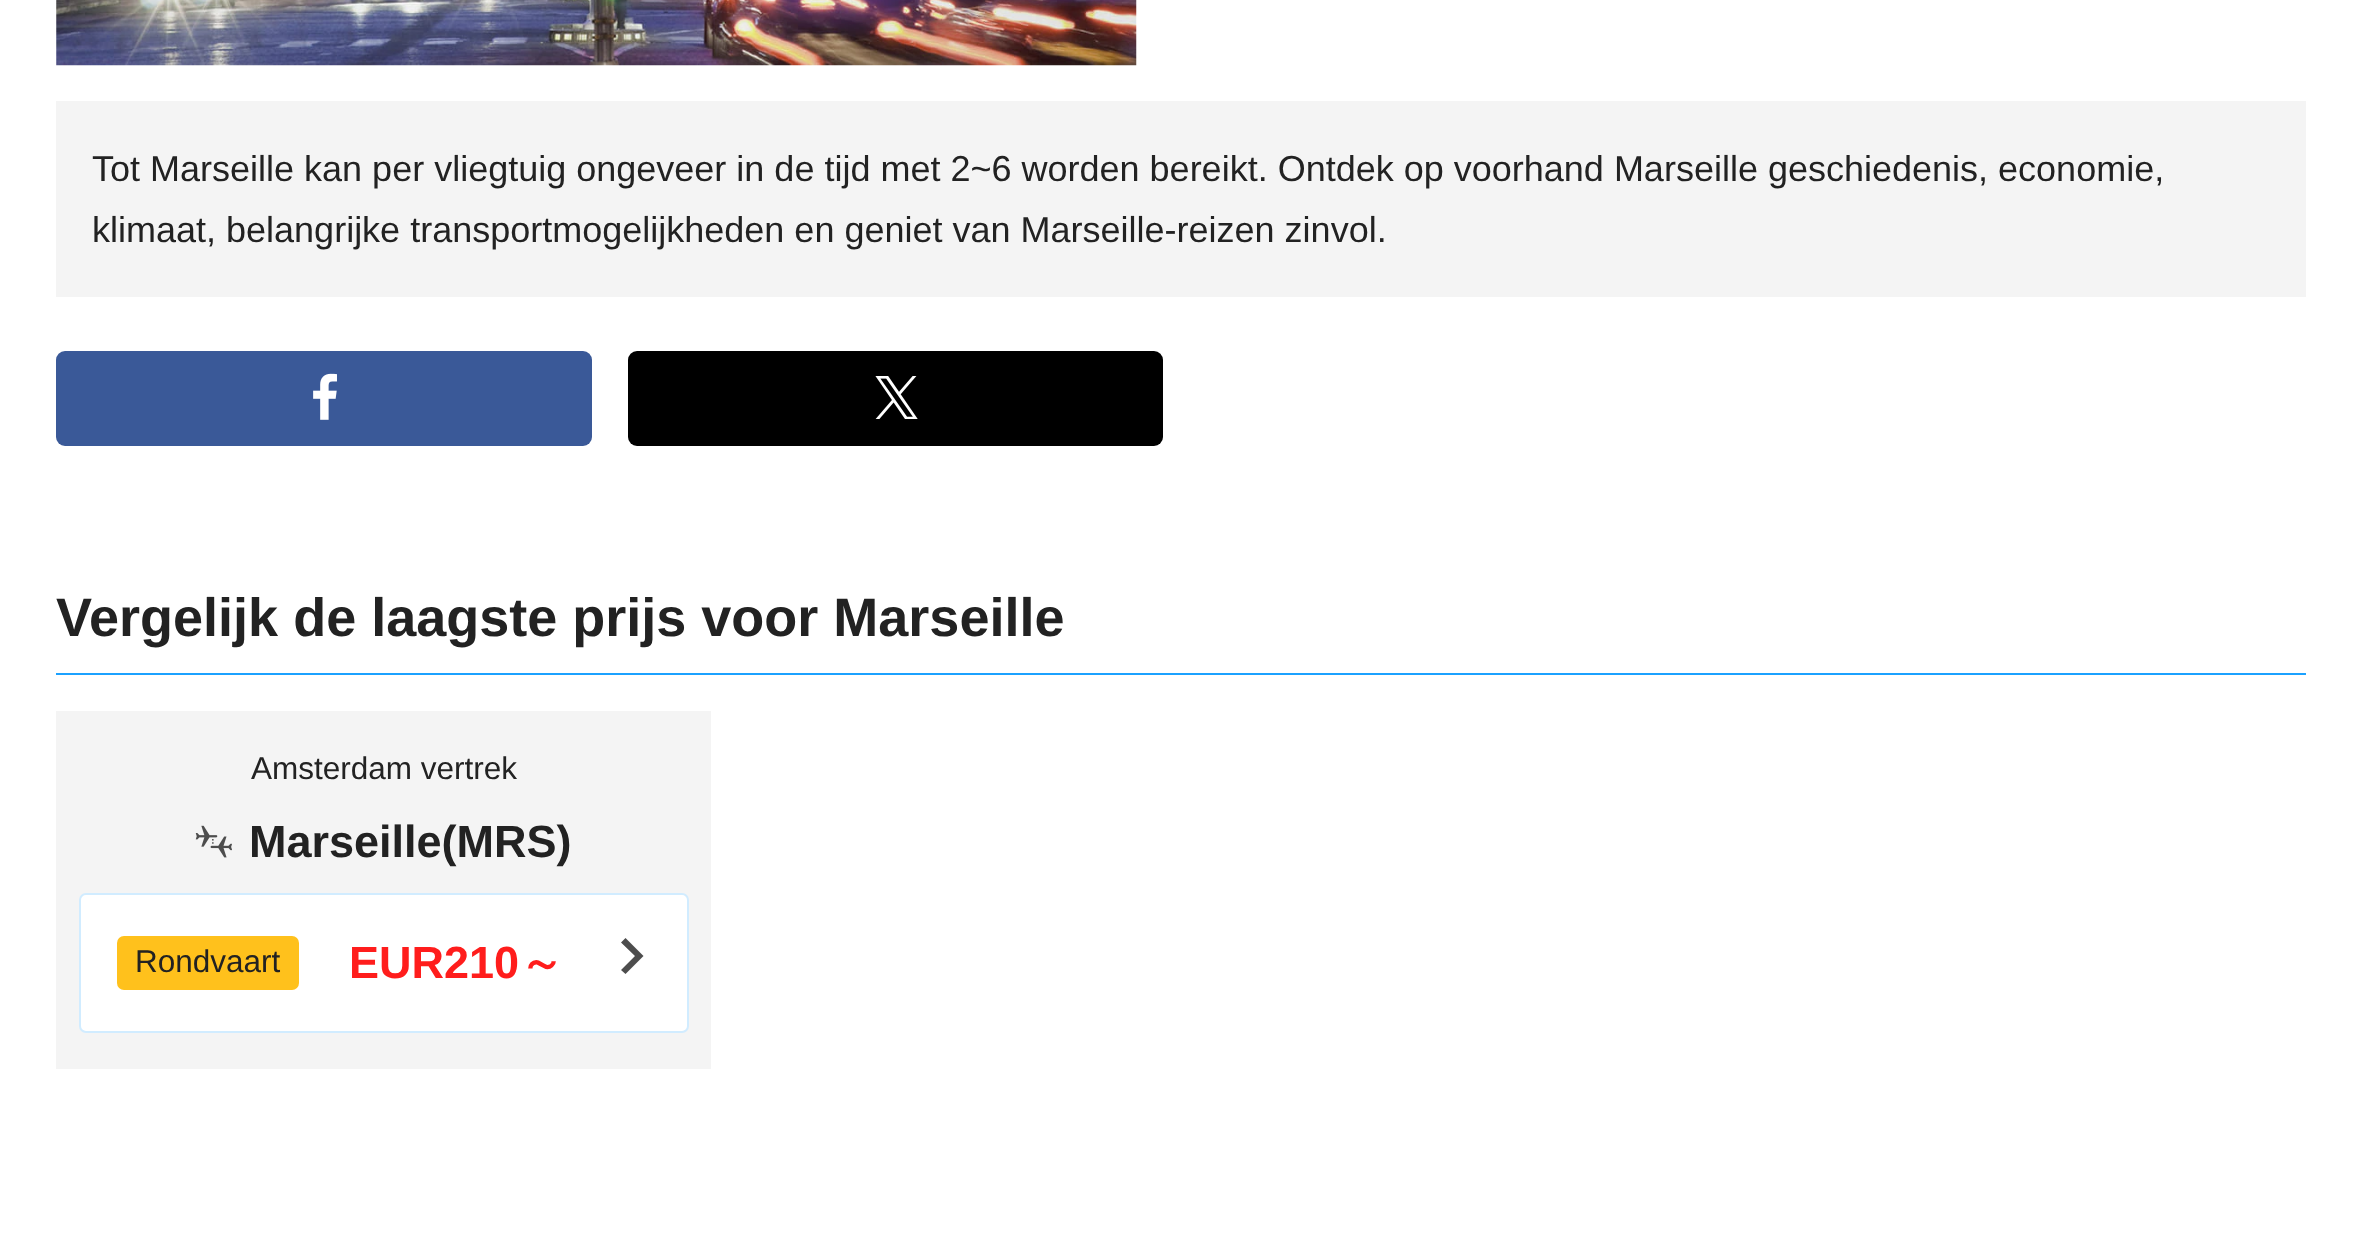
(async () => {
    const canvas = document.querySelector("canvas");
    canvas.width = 2362;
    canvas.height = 1235;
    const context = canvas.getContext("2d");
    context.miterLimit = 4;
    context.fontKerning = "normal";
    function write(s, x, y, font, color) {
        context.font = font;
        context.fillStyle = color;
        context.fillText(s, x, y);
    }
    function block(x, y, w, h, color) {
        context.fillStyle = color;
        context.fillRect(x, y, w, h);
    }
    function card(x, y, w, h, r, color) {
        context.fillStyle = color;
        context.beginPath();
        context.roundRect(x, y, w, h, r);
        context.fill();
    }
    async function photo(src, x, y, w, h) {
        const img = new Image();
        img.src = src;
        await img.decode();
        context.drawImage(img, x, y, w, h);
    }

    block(0, 0, 2362, 1235, "rgb(255, 255, 255)");
    await photo("media/1.png", 56, 0, 1081, 66);
    block(56, 101, 2250, 196, "rgb(244, 244, 244)");
    write("Tot Marseille kan per vliegtuig ongeveer in de tijd met 2~6 worden bereikt. Ontdek op voorhand Marseille geschiedenis, economie,", 92, 181, "36px Liberation Sans", "rgb(34, 34, 34)");
    write("klimaat, belangrijke transportmogelijkheden en geniet van Marseille-reizen zinvol.", 92, 242, "36px Liberation Sans", "rgb(34, 34, 34)");
    card(56, 351, 536, 95, 9, "rgb(58, 89, 152)");
    await photo("media/2.png", 313, 373, 24, 47);
    card(628, 351, 535, 95, 9, "rgb(0, 0, 0)");
    await photo("media/3.png", 875, 376, 43, 43);
    block(56, 673, 2250, 2, "rgb(27, 161, 255)");
    write("Vergelijk de laagste prijs voor Marseille", 56, 636, "bold 54px Liberation Sans", "rgb(34, 34, 34)");
    block(56, 711, 655, 358, "rgb(244, 244, 244)");
    write("Amsterdam vertrek", 251, 779, "31.5px Liberation Sans", "rgb(34, 34, 34)");
    await photo("media/4.png", 195, 825, 37, 33);
    write("Marseille(MRS)", 249, 857, "bold 45px Liberation Sans", "rgb(34, 34, 34)");
    context.fillStyle = "rgb(255, 255, 255)";
    context.beginPath();
    context.roundRect(80, 894, 608, 138, 6);
    context.fill();
    context.strokeStyle = "rgb(209, 236, 255)";
    context.lineWidth = 2;
    context.stroke();
    card(117, 936, 182, 54, 7, "rgb(255, 193, 28)");
    write("Rondvaart", 135, 972, "31.5px Liberation Sans", "rgb(34, 34, 34)");
    write("EUR210", 349, 978, "bold 45px Liberation Sans", "rgb(255, 29, 28)");
    write("～", 519, 978, "bold 45px WenQuanYi Zen Hei", "rgb(255, 29, 28)");
    context.fillStyle = "rgb(77, 77, 77)";
    context.beginPath();
    context.moveTo(625.5, 938);
    context.lineTo(621, 942.5);
    context.lineTo(635, 956);
    context.lineTo(621, 970);
    context.lineTo(625.5, 974);
    context.lineTo(643.5, 956);
    context.closePath();
    context.fill();
})();
